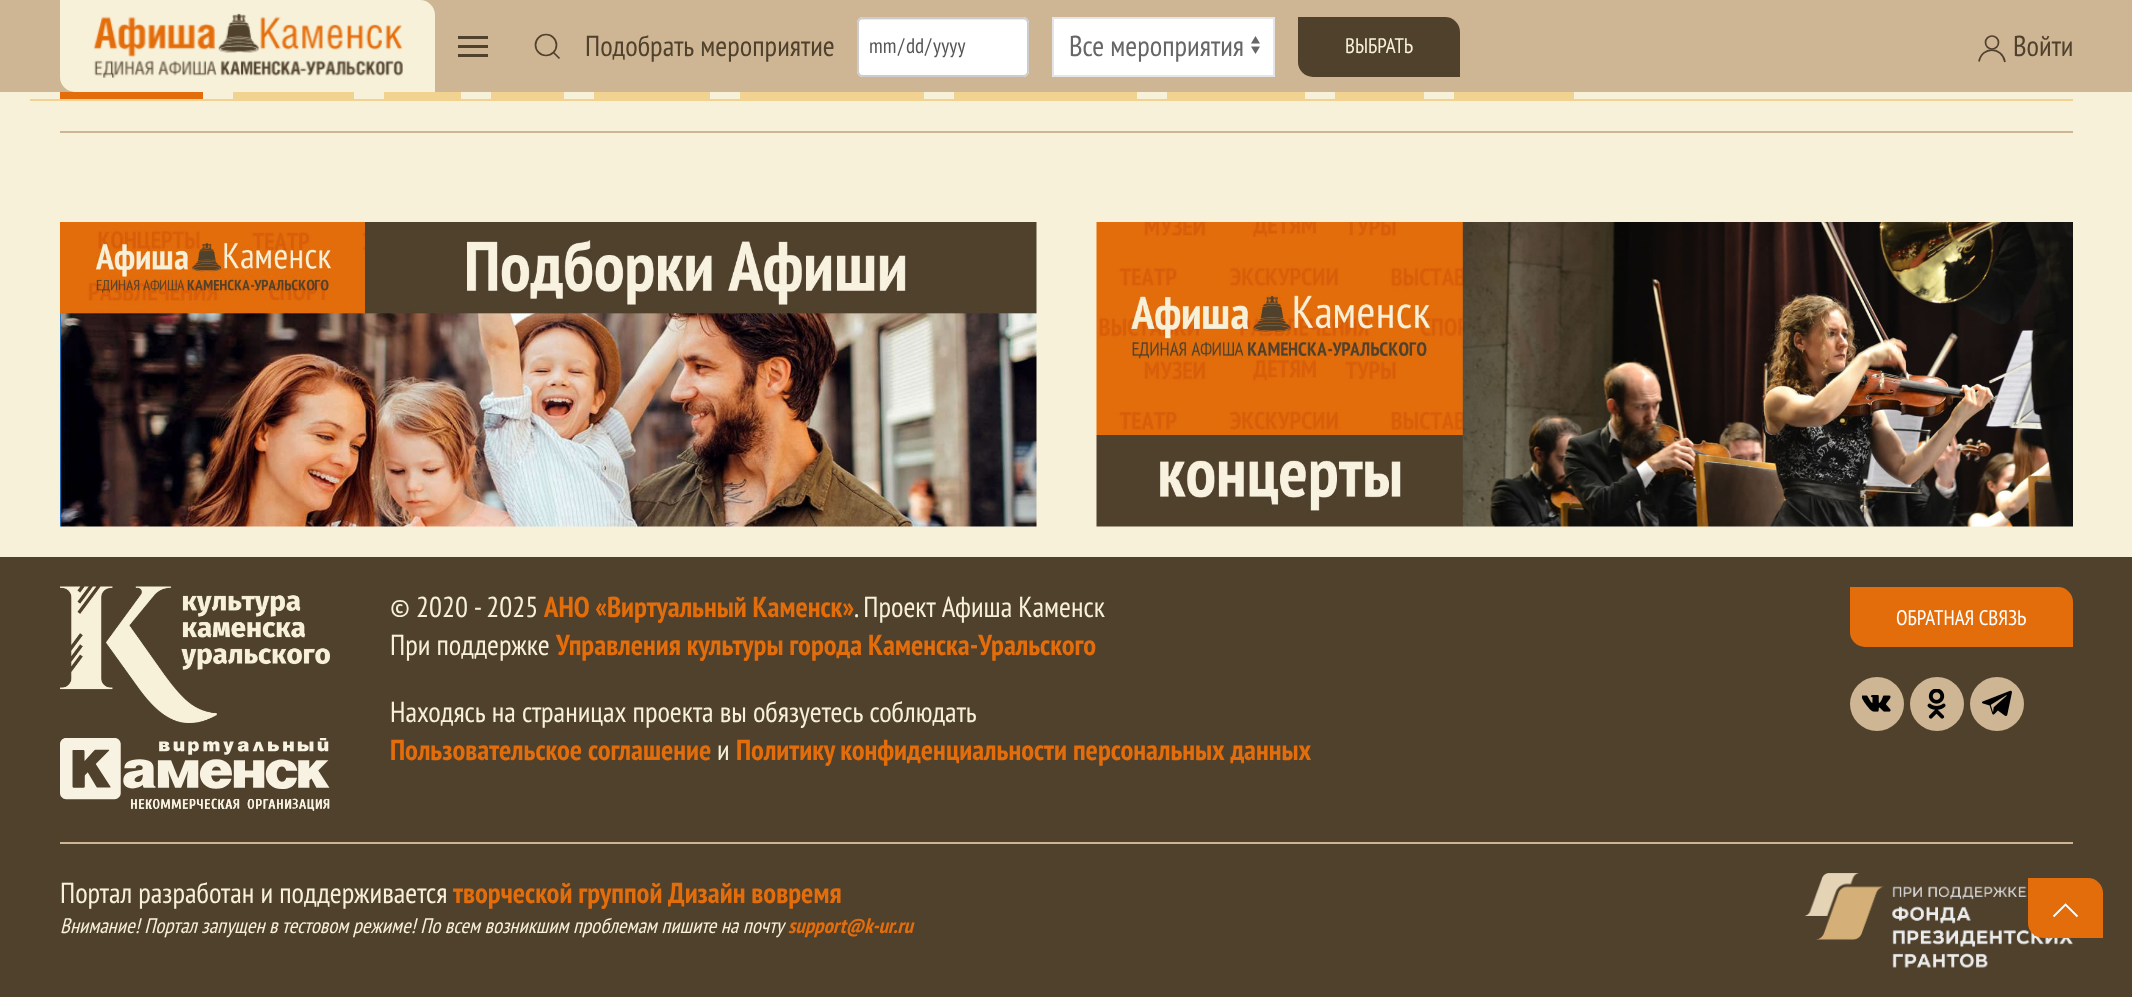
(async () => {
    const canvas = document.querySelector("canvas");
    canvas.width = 2132;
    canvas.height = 997;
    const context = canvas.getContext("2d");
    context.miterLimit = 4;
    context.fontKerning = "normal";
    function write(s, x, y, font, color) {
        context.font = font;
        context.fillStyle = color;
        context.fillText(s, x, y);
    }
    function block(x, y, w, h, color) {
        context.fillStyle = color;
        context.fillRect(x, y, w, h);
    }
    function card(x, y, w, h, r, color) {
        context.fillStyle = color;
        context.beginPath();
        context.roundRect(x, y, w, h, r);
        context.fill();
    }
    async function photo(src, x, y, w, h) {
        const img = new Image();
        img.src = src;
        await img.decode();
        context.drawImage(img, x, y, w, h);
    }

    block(0, 0, 2132, 997, "rgb(247, 241, 218)");
    block(0, 0, 2132, 92, "rgb(206, 182, 149)");
    context.fillStyle = "rgb(247, 241, 218)";
    context.beginPath();
    context.roundRect(60, 0, 375, 92, [0, 15, 0, 15]);
    context.fill();
    await photo("media/1.png", 93, 13, 310, 65);
    block(458, 45, 30, 3, "rgb(80, 65, 45)");
    block(458, 36, 30, 3, "rgb(80, 65, 45)");
    block(458, 54, 30, 3, "rgb(80, 65, 45)");
    context.beginPath();
    context.arc(546, 45, 10.5, 0, Math.PI * 2);
    context.strokeStyle = "rgb(80, 65, 45)";
    context.lineWidth = 1.7;
    context.stroke();
    context.beginPath();
    context.moveTo(553.5, 52.5);
    context.lineTo(559.5, 58.5);
    context.closePath();
    context.stroke();
    write("Подобрать мероприятие", 585, 56, "28.8px PT Sans Narrow", "rgb(80, 65, 45)");
    card(857, 17, 172, 60, 6, "rgb(255, 255, 255)");
    context.fillStyle = "rgb(236, 236, 236)";
    context.beginPath();
    context.moveTo(862, 20);
    context.lineTo(1023, 20);
    context.bezierCurveTo(1025, 20, 1028, 22, 1028, 24);
    context.lineTo(1028, 23);
    context.bezierCurveTo(1028, 20, 1026, 18, 1023, 18);
    context.lineTo(863, 18);
    context.bezierCurveTo(860, 18, 858, 20, 858, 23);
    context.lineTo(858, 24);
    context.bezierCurveTo(858, 22, 860, 20, 862, 20);
    context.closePath();
    context.fill();
    context.beginPath();
    context.roundRect(858, 18, 170, 58, 5);
    context.strokeStyle = "rgb(204, 204, 204)";
    context.lineWidth = 2;
    context.stroke();
    write("mm", 869, 53, "21px PT Sans Narrow", "rgb(85, 85, 85)");
    write("/", 898, 53, "21px PT Sans Narrow", "rgb(85, 85, 85)");
    write("dd", 906, 53, "21px PT Sans Narrow", "rgb(85, 85, 85)");
    write("/", 925, 53, "21px PT Sans Narrow", "rgb(85, 85, 85)");
    write("yyyy", 933, 53, "21px PT Sans Narrow", "rgb(85, 85, 85)");
    block(1054, 19, 219, 56, "rgb(255, 255, 255)");
    await photo("media/2.png", 1251, 36, 9, 18);
    context.strokeStyle = "rgb(229, 229, 229)";
    context.strokeRect(1053, 18, 221, 58);
    write("Все мероприятия", 1069, 56, "28.8px PT Sans Narrow", "rgb(102, 102, 102)");
    context.fillStyle = "rgb(80, 65, 45)";
    context.beginPath();
    context.roundRect(1298, 17, 162, 60, [0, 15, 0, 15]);
    context.fill();
    write("ВЫБРАТЬ", 1345, 53, "21px PT Sans Narrow", "rgb(247, 241, 218)");
    context.beginPath();
    context.arc(1992, 42.5, 6.5, 0, Math.PI * 2);
    context.strokeStyle = "rgb(80, 65, 45)";
    context.lineWidth = 1.7;
    context.stroke();
    context.beginPath();
    context.moveTo(1979, 61.5);
    context.bezierCurveTo(1982, 46, 2002, 46.5, 2005, 62);
    context.stroke();
    write("Войти", 2013, 56, "28.8px PT Sans Narrow", "rgb(80, 65, 45)");
    block(30, 99, 2043, 2, "rgb(242, 210, 145)");
    block(60, 92, 143, 7, "rgb(228, 109, 11)");
    block(233, 92, 121, 7, "rgb(242, 210, 145)");
    block(384, 92, 77, 7, "rgb(242, 210, 145)");
    block(491, 92, 73, 7, "rgb(242, 210, 145)");
    block(594, 92, 116, 7, "rgb(242, 210, 145)");
    block(740, 92, 184, 7, "rgb(242, 210, 145)");
    block(954, 92, 183, 7, "rgb(242, 210, 145)");
    block(1167, 92, 138, 7, "rgb(242, 210, 145)");
    block(1335, 92, 89, 7, "rgb(242, 210, 145)");
    block(1454, 92, 120, 7, "rgb(242, 210, 145)");
    block(60, 131, 2013, 2, "rgb(206, 182, 149)");
    await photo("media/3.png", 60, 222, 977, 305);
    await photo("media/4.png", 1096, 222, 977, 305);
    block(0, 557, 2132, 440, "rgb(80, 65, 45)");
    await photo("media/5.png", 60, 586, 270, 137);
    await photo("media/6.png", 60, 738, 270, 73);
    write("© 2020 - 2025", 390, 617, "28.8px PT Sans Narrow", "rgb(247, 241, 218)");
    write("АНО «Виртуальный Каменск»", 544, 617, "bold 28.8px PT Sans Narrow", "rgb(228, 109, 11)");
    write(". Проект Афиша Каменск", 854, 617, "28.8px PT Sans Narrow", "rgb(247, 241, 218)");
    write("При поддержке", 390, 655, "28.8px PT Sans Narrow", "rgb(247, 241, 218)");
    write("Управления культуры города Каменска-Уральского", 556, 655, "bold 28.8px PT Sans Narrow", "rgb(228, 109, 11)");
    write("Находясь на страницах проекта вы обязуетесь соблюдать", 390, 722, "28.8px PT Sans Narrow", "rgb(247, 241, 218)");
    write("Пользовательское соглашение", 390, 760, "bold 28.8px PT Sans Narrow", "rgb(228, 109, 11)");
    write("и", 717, 760, "28.8px PT Sans Narrow", "rgb(247, 241, 218)");
    write("Политику конфиденциальности персональных данных", 736, 760, "bold 28.8px PT Sans Narrow", "rgb(228, 109, 11)");
    context.beginPath();
    context.roundRect(1850, 587, 223, 60, [0, 15, 0, 15]);
    context.fill();
    write("ОБРАТНАЯ СВЯЗЬ", 1896, 625, "21px PT Sans Narrow", "rgb(255, 255, 255)");
    context.fillStyle = "rgb(206, 182, 149)";
    context.beginPath();
    context.arc(1877, 704, 27, 0, Math.PI * 2);
    context.fill();
    await photo("media/7.png", 1862, 695, 29, 17);
    context.beginPath();
    context.arc(1937, 704, 27, 0, Math.PI * 2);
    context.fill();
    await photo("media/8.png", 1927, 689, 19, 30);
    context.beginPath();
    context.arc(1997, 704, 27, 0, Math.PI * 2);
    context.fill();
    await photo("media/9.png", 1982, 690, 30, 26);
    block(60, 842, 2013, 2, "rgb(206, 182, 149)");
    write("Портал разработан и поддерживается", 60, 903, "28.8px PT Sans Narrow", "rgb(247, 241, 218)");
    write("творческой группой Дизайн вовремя", 453, 903, "bold 28.8px PT Sans Narrow", "rgb(228, 109, 11)");
    write("Внимание! Портал запущен в тестовом режиме! По всем возникшим проблемам пишите на почту", 60, 933, "italic 21px PT Sans Narrow", "rgb(247, 241, 218)");
    write("support@k-ur.ru", 788, 933, "italic bold 21px PT Sans Narrow", "rgb(228, 109, 11)");
    await photo("media/10.png", 1804, 873, 269, 95);
    context.beginPath();
    context.roundRect(2028, 878, 75, 60, [0, 15, 0, 15]);
    context.fill();
    context.beginPath();
    context.moveTo(2053.5, 916.5);
    context.lineTo(2065.5, 904.5);
    context.lineTo(2077.5, 916.5);
    context.strokeStyle = "rgb(255, 255, 255)";
    context.lineWidth = 1.8;
    context.stroke();
})();
